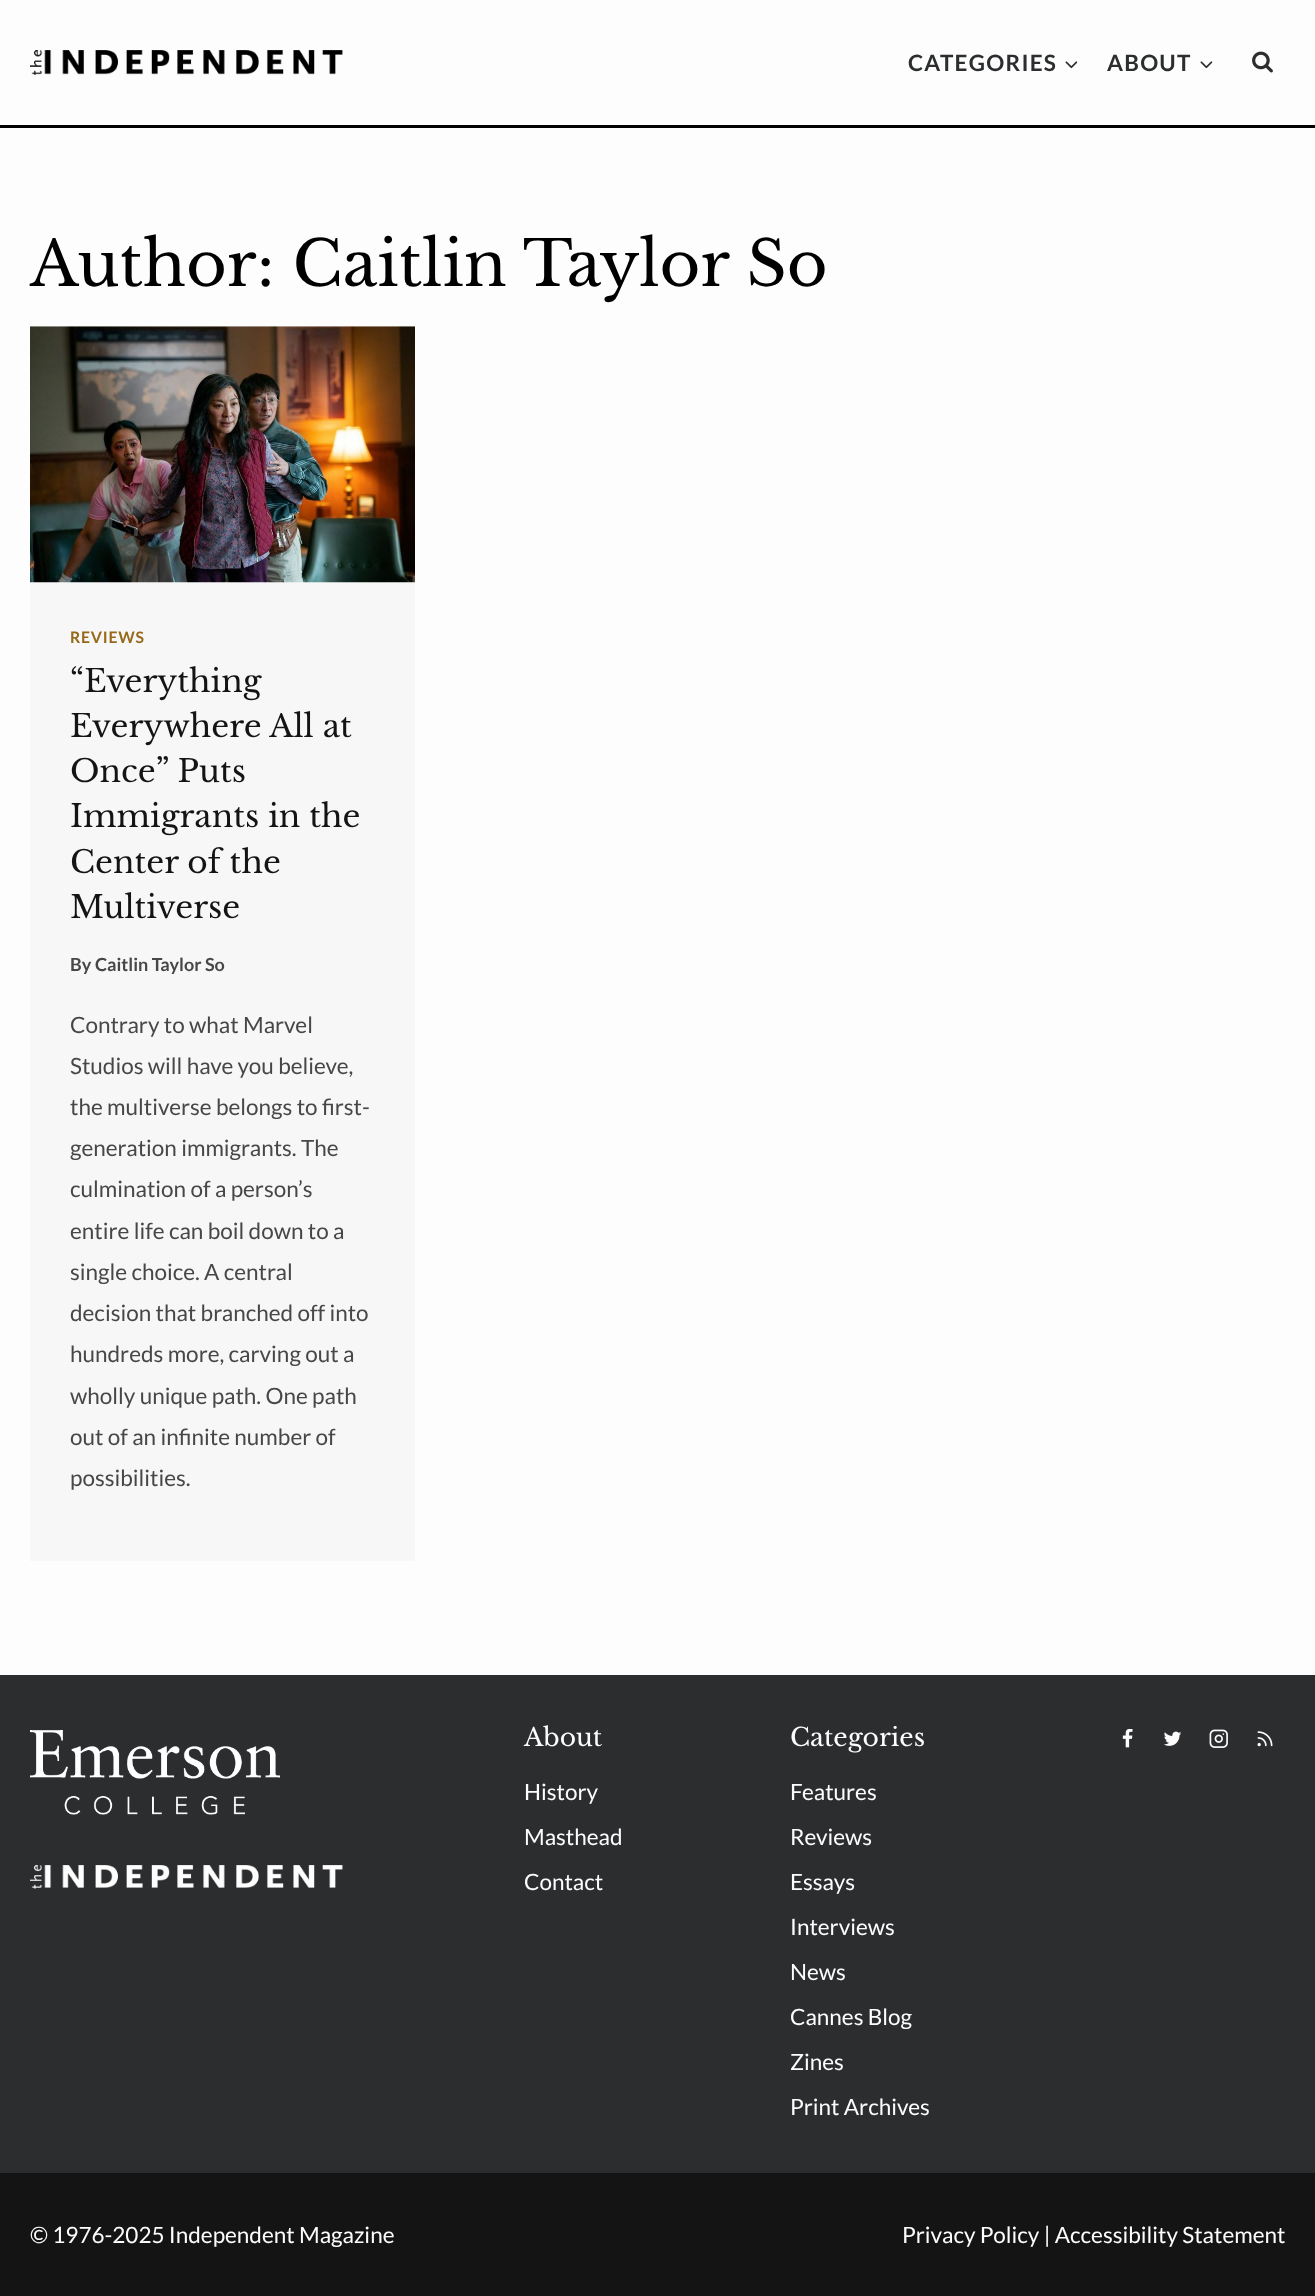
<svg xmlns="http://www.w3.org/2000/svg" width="1315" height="2296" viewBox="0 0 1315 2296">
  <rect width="100%" height="100%" fill="#fdfdfd"/>
  <rect x="0" y="125" width="1315" height="3" fill="#000000"/>
  <image x="30" y="50" width="313" height="25" href="img1.png"/>
  <text x="908" y="71" font-family="Lato" font-size="22.5" font-weight="bold" letter-spacing="1.25" fill="#2b2d2f">CATEGORIES</text>
  <image x="1065" y="61" width="13" height="8" href="img2.png"/>
  <text x="1107" y="71" font-family="Lato" font-size="22.5" font-weight="bold" letter-spacing="1.25" fill="#2b2d2f">ABOUT</text>
  <image x="1200" y="61" width="13" height="8" href="img2.png"/>
  <image x="1252" y="51" width="21" height="22" href="img3.png"/>
  <text x="30" y="286" font-family="Libre Baskerville" font-size="62.5" fill="#000000">Author: Caitlin Taylor So</text>
  <rect x="30" y="326" width="385" height="1235" fill="#f7f7f7"/>
  <image x="30" y="326" width="385" height="257" href="img4.png"/>
  <text x="70" y="643" font-family="Lato" font-size="15.75" font-weight="bold" letter-spacing="0.75" fill="#966919">REVIEWS</text>
  <text x="70" y="692" font-family="Libre Baskerville" font-size="31.25" fill="#141414">“Everything</text>
  <text x="70" y="737" font-family="Libre Baskerville" font-size="31.25" fill="#141414">Everywhere All at</text>
  <text x="70" y="782" font-family="Libre Baskerville" font-size="31.25" fill="#141414">Once” Puts</text>
  <text x="70" y="827" font-family="Libre Baskerville" font-size="31.25" fill="#141414">Immigrants in the</text>
  <text x="70" y="873" font-family="Libre Baskerville" font-size="31.25" fill="#141414">Center of the</text>
  <text x="70" y="918" font-family="Libre Baskerville" font-size="31.25" fill="#141414">Multiverse</text>
  <text x="70" y="971" font-family="Lato" font-size="18" font-weight="bold" fill="#474747">By</text>
  <text x="95" y="971" font-family="Lato" font-size="18" font-weight="bold" fill="#474747">Caitlin Taylor So</text>
  <text x="70" y="1033" font-family="Lato" font-size="22.5" fill="#474747">Contrary to what Marvel</text>
  <text x="70" y="1074" font-family="Lato" font-size="22.5" fill="#474747">Studios will have you believe,</text>
  <text x="70" y="1115" font-family="Lato" font-size="22.5" fill="#474747">the multiverse belongs to first-</text>
  <text x="70" y="1156" font-family="Lato" font-size="22.5" fill="#474747">generation immigrants. The</text>
  <text x="70" y="1197" font-family="Lato" font-size="22.5" fill="#474747">culmination of a person’s</text>
  <text x="70" y="1239" font-family="Lato" font-size="22.5" fill="#474747">entire life can boil down to a</text>
  <text x="70" y="1280" font-family="Lato" font-size="22.5" fill="#474747">single choice. A central</text>
  <text x="70" y="1321" font-family="Lato" font-size="22.5" fill="#474747">decision that branched off into</text>
  <text x="70" y="1362" font-family="Lato" font-size="22.5" fill="#474747">hundreds more, carving out a</text>
  <text x="70" y="1404" font-family="Lato" font-size="22.5" fill="#474747">wholly unique path. One path</text>
  <text x="70" y="1445" font-family="Lato" font-size="22.5" fill="#474747">out of an infinite number of</text>
  <text x="70" y="1486" font-family="Lato" font-size="22.5" fill="#474747">possibilities.</text>
  <rect x="0" y="1675" width="1315" height="498" fill="#2b2d2f"/>
  <image x="30" y="1730" width="250" height="85" href="img5.png"/>
  <image x="30" y="1865" width="313" height="24" href="img6.png"/>
  <text x="524" y="1746" font-family="Libre Baskerville" font-size="25" fill="#fdfdfd">About</text>
  <text x="524" y="1800" font-family="Lato" font-size="22.5" fill="#fdfdfd">History</text>
  <text x="524" y="1845" font-family="Lato" font-size="22.5" fill="#fdfdfd">Masthead</text>
  <text x="524" y="1890" font-family="Lato" font-size="22.5" fill="#fdfdfd">Contact</text>
  <text x="790" y="1746" font-family="Libre Baskerville" font-size="25" fill="#fdfdfd">Categories</text>
  <text x="790" y="1800" font-family="Lato" font-size="22.5" fill="#fdfdfd">Features</text>
  <text x="790" y="1845" font-family="Lato" font-size="22.5" fill="#fdfdfd">Reviews</text>
  <text x="790" y="1890" font-family="Lato" font-size="22.5" fill="#fdfdfd">Essays</text>
  <text x="790" y="1935" font-family="Lato" font-size="22.5" fill="#fdfdfd">Interviews</text>
  <text x="790" y="1980" font-family="Lato" font-size="22.5" fill="#fdfdfd">News</text>
  <text x="790" y="2025" font-family="Lato" font-size="22.5" fill="#fdfdfd">Cannes Blog</text>
  <text x="790" y="2070" font-family="Lato" font-size="22.5" fill="#fdfdfd">Zines</text>
  <text x="790" y="2115" font-family="Lato" font-size="22.5" fill="#fdfdfd">Print Archives</text>
  <image x="1122" y="1729" width="11" height="19" href="img7.png"/>
  <image x="1163" y="1731" width="19" height="15" href="img8.png"/>
  <image x="1209" y="1729" width="19" height="19" href="img9.png"/>
  <image x="1257" y="1731" width="16" height="16" href="img10.png"/>
  <rect x="0" y="2173" width="1315" height="123" fill="#141414"/>
  <text x="30" y="2243" font-family="Lato" font-size="22.5" fill="#fdfdfd">© 1976-2025 Independent Magazine</text>
  <text x="902" y="2243" font-family="Lato" font-size="22.5" fill="#fdfdfd">Privacy Policy | Accessibility Statement</text>
</svg>
